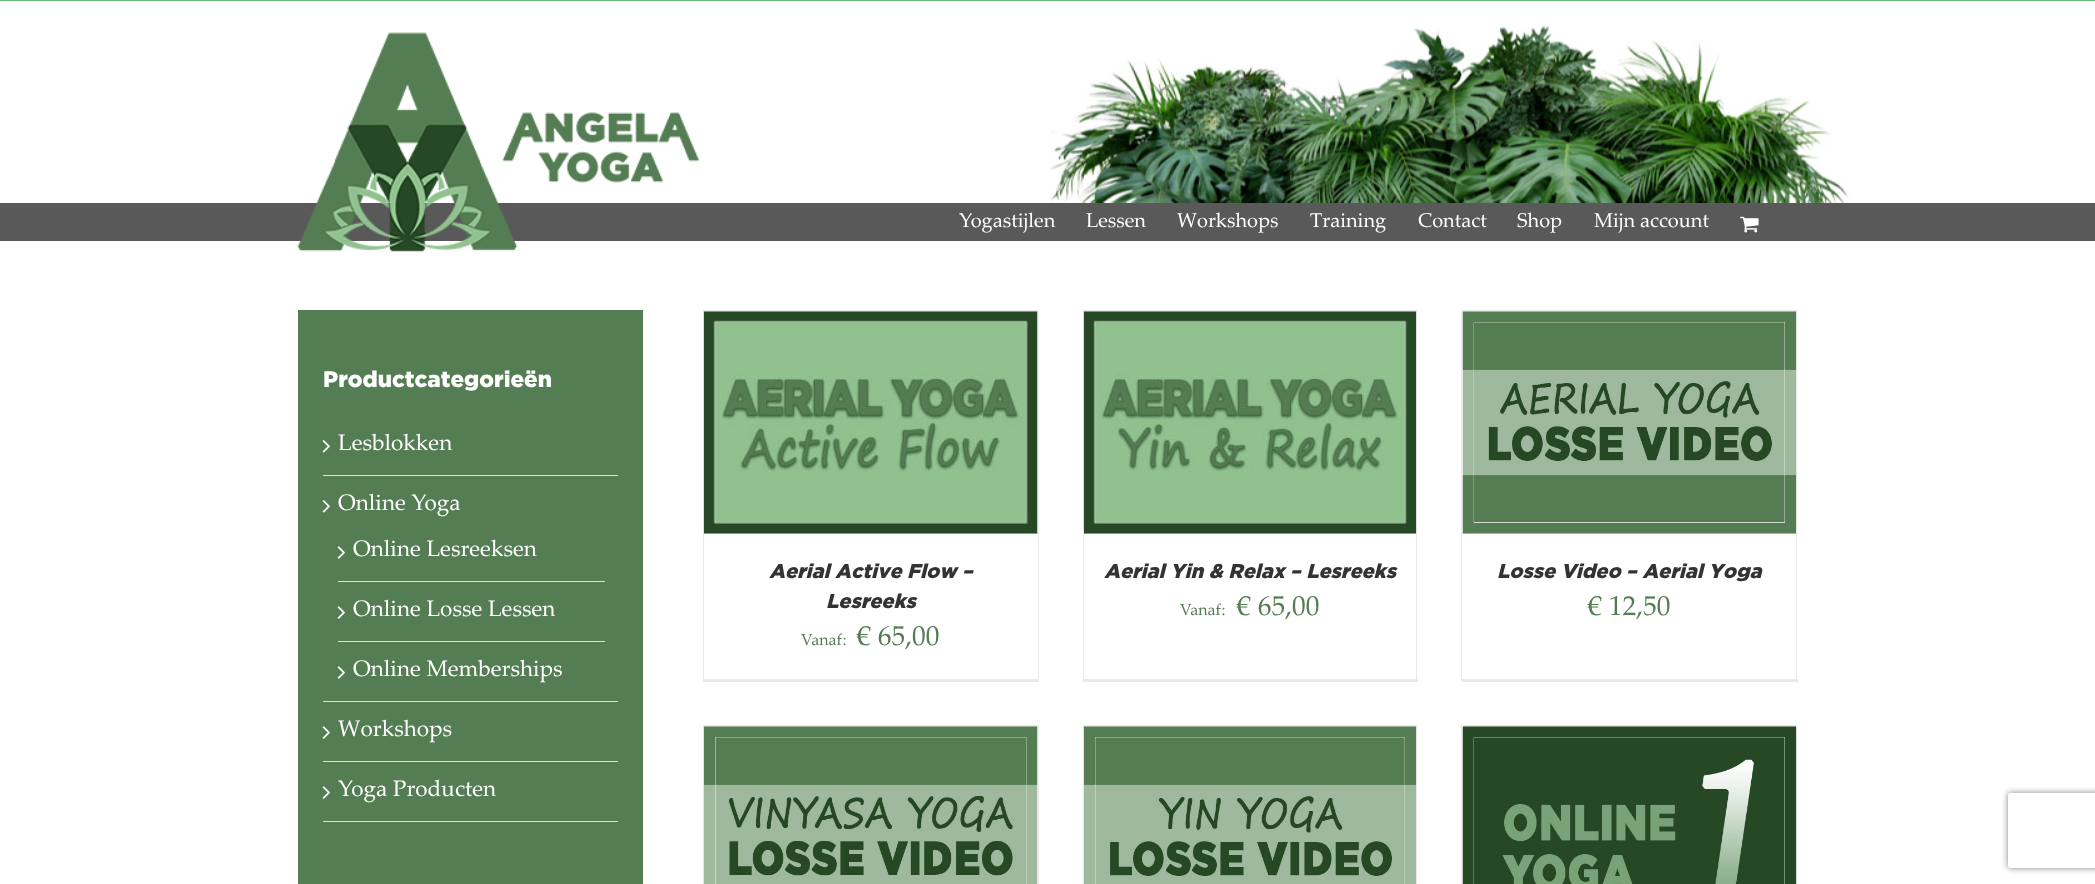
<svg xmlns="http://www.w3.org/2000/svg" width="2095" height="884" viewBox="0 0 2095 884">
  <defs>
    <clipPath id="clip1"><path d="M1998 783H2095V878H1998ZM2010.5 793H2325.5C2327 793 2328 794 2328 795.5V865.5C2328 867 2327 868 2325.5 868H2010.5C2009 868 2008 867 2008 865.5V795.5C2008 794 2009 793 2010.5 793Z" clip-rule="evenodd"/></clipPath>
    <filter id="blur1" x="-50%" y="-200%" width="200%" height="500%"><feGaussianBlur stdDeviation="3"/></filter>
  </defs>
  <rect width="100%" height="100%" fill="#ffffff"/>
  <rect x="0" y="0" width="2095" height="1" fill="#65bc7b"/>
  <image x="1049" y="25" width="800" height="178" href="img1.png"/>
  <rect x="0" y="203" width="2095" height="38" fill="#595959"/>
  <image x="297" y="32" width="402" height="220" href="img2.png"/>
  <text x="959" y="227" font-family="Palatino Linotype" font-size="20" fill="#ffffff">Yogastijlen</text>
  <text x="1086" y="227" font-family="Palatino Linotype" font-size="20" fill="#ffffff">Lessen</text>
  <text x="1177" y="227" font-family="Palatino Linotype" font-size="20" fill="#ffffff">Workshops</text>
  <text x="1310" y="227" font-family="Palatino Linotype" font-size="20" fill="#ffffff">Training</text>
  <text x="1418" y="227" font-family="Palatino Linotype" font-size="20" fill="#ffffff">Contact</text>
  <text x="1517" y="227" font-family="Palatino Linotype" font-size="20" fill="#ffffff">Shop</text>
  <text x="1594" y="227" font-family="Palatino Linotype" font-size="20" fill="#ffffff">Mijn account</text>
  <image x="1740" y="216" width="19" height="17" href="img3.png"/>
  <rect x="298" y="310" width="345" height="574" fill="#557d53"/>
  <text x="323" y="387" font-family="Gotham" font-size="22.5" font-weight="900" fill="#ffffff">Productcategorieën</text>
  <rect x="323" y="475" width="295" height="1" fill="#e0dede"/>
  <image x="322" y="440" width="8" height="13" href="img4.png"/>
  <text x="338" y="450" font-family="Palatino Linotype" font-size="22.5" fill="#ffffff">Lesblokken</text>
  <rect x="323" y="701" width="295" height="1" fill="#e0dede"/>
  <image x="322" y="500" width="8" height="13" href="img4.png"/>
  <text x="338" y="510" font-family="Palatino Linotype" font-size="22.5" fill="#ffffff">Online Yoga</text>
  <rect x="338" y="581" width="267" height="1" fill="#e0dede"/>
  <image x="337" y="546" width="8" height="13" href="img5.png"/>
  <text x="353" y="556" font-family="Palatino Linotype" font-size="22.5" fill="#ffffff">Online Lesreeksen</text>
  <rect x="338" y="641" width="267" height="1" fill="#e0dede"/>
  <image x="337" y="606" width="8" height="13" href="img5.png"/>
  <text x="353" y="616" font-family="Palatino Linotype" font-size="22.5" fill="#ffffff">Online Losse Lessen</text>
  <image x="337" y="666" width="8" height="13" href="img5.png"/>
  <text x="353" y="676" font-family="Palatino Linotype" font-size="22.5" fill="#ffffff">Online Memberships</text>
  <rect x="323" y="761" width="295" height="1" fill="#e0dede"/>
  <image x="322" y="726" width="8" height="13" href="img5.png"/>
  <text x="338" y="736" font-family="Palatino Linotype" font-size="22.5" fill="#ffffff">Workshops</text>
  <rect x="323" y="821" width="295" height="1" fill="#e0dede"/>
  <image x="322" y="786" width="8" height="13" href="img5.png"/>
  <text x="338" y="796" font-family="Palatino Linotype" font-size="22.5" fill="#ffffff">Yoga Producten</text>
  <rect x="703" y="310" width="336" height="1" fill="#ebeaea"/>
  <rect x="1038" y="310" width="1" height="371" fill="#ebeaea"/>
  <rect x="703" y="679" width="336" height="3" fill="#ebeaea"/>
  <rect x="703" y="310" width="1" height="371" fill="#ebeaea"/>
  <image x="703" y="311" width="335" height="223" href="img6.png"/>
  <text x="769" y="578" font-family="Gotham" font-size="20" font-weight="900" font-style="italic" fill="#333333">Aerial Active Flow –</text>
  <text x="826" y="608" font-family="Gotham" font-size="20" font-weight="900" font-style="italic" fill="#333333">Lesreeks</text>
  <text x="801" y="645" font-family="Palatino Linotype" font-size="16" fill="#557d53">Vanaf:</text>
  <text x="857" y="645" font-family="Palatino Linotype" font-size="27.5" fill="#557d53">€ 65,00</text>
  <rect x="1083" y="310" width="335" height="1" fill="#ebeaea"/>
  <rect x="1416" y="310" width="1" height="371" fill="#ebeaea"/>
  <rect x="1083" y="679" width="335" height="3" fill="#ebeaea"/>
  <rect x="1083" y="310" width="1" height="371" fill="#ebeaea"/>
  <image x="1083" y="311" width="334" height="223" href="img7.png"/>
  <text x="1104" y="578" font-family="Gotham" font-size="20" font-weight="900" font-style="italic" fill="#333333">Aerial Yin &amp; Relax – Lesreeks</text>
  <text x="1180" y="615" font-family="Palatino Linotype" font-size="16" fill="#557d53">Vanaf:</text>
  <text x="1237" y="615" font-family="Palatino Linotype" font-size="27.5" fill="#557d53">€ 65,00</text>
  <rect x="1461" y="310" width="337" height="1" fill="#ebeaea"/>
  <rect x="1796" y="310" width="1" height="371" fill="#ebeaea"/>
  <rect x="1461" y="679" width="337" height="3" fill="#ebeaea"/>
  <rect x="1461" y="310" width="1" height="371" fill="#ebeaea"/>
  <image x="1462" y="311" width="335" height="223" href="img8.png"/>
  <text x="1497" y="578" font-family="Gotham" font-size="20" font-weight="900" font-style="italic" fill="#333333">Losse Video – Aerial Yoga</text>
  <text x="1588" y="615" font-family="Palatino Linotype" font-size="27.5" fill="#557d53">€ 12,50</text>
  <rect x="703" y="725" width="336" height="1" fill="#ebeaea"/>
  <rect x="1038" y="725" width="1" height="159" fill="#ebeaea"/>
  <rect x="703" y="725" width="1" height="159" fill="#ebeaea"/>
  <image x="703" y="726" width="335" height="158" href="img9.png"/>
  <rect x="1083" y="725" width="335" height="1" fill="#ebeaea"/>
  <rect x="1416" y="725" width="1" height="159" fill="#ebeaea"/>
  <rect x="1083" y="725" width="1" height="159" fill="#ebeaea"/>
  <image x="1083" y="726" width="334" height="158" href="img10.png"/>
  <rect x="1461" y="725" width="337" height="1" fill="#ebeaea"/>
  <rect x="1796" y="725" width="1" height="159" fill="#ebeaea"/>
  <rect x="1461" y="725" width="1" height="159" fill="#ebeaea"/>
  <image x="1462" y="726" width="335" height="158" href="img11.png"/>
  <g clip-path="url(#clip1)">
    <rect x="2008" y="793" width="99" height="75" rx="2.5" fill="#808080" filter="url(#blur1)"/>
  </g>
</svg>
